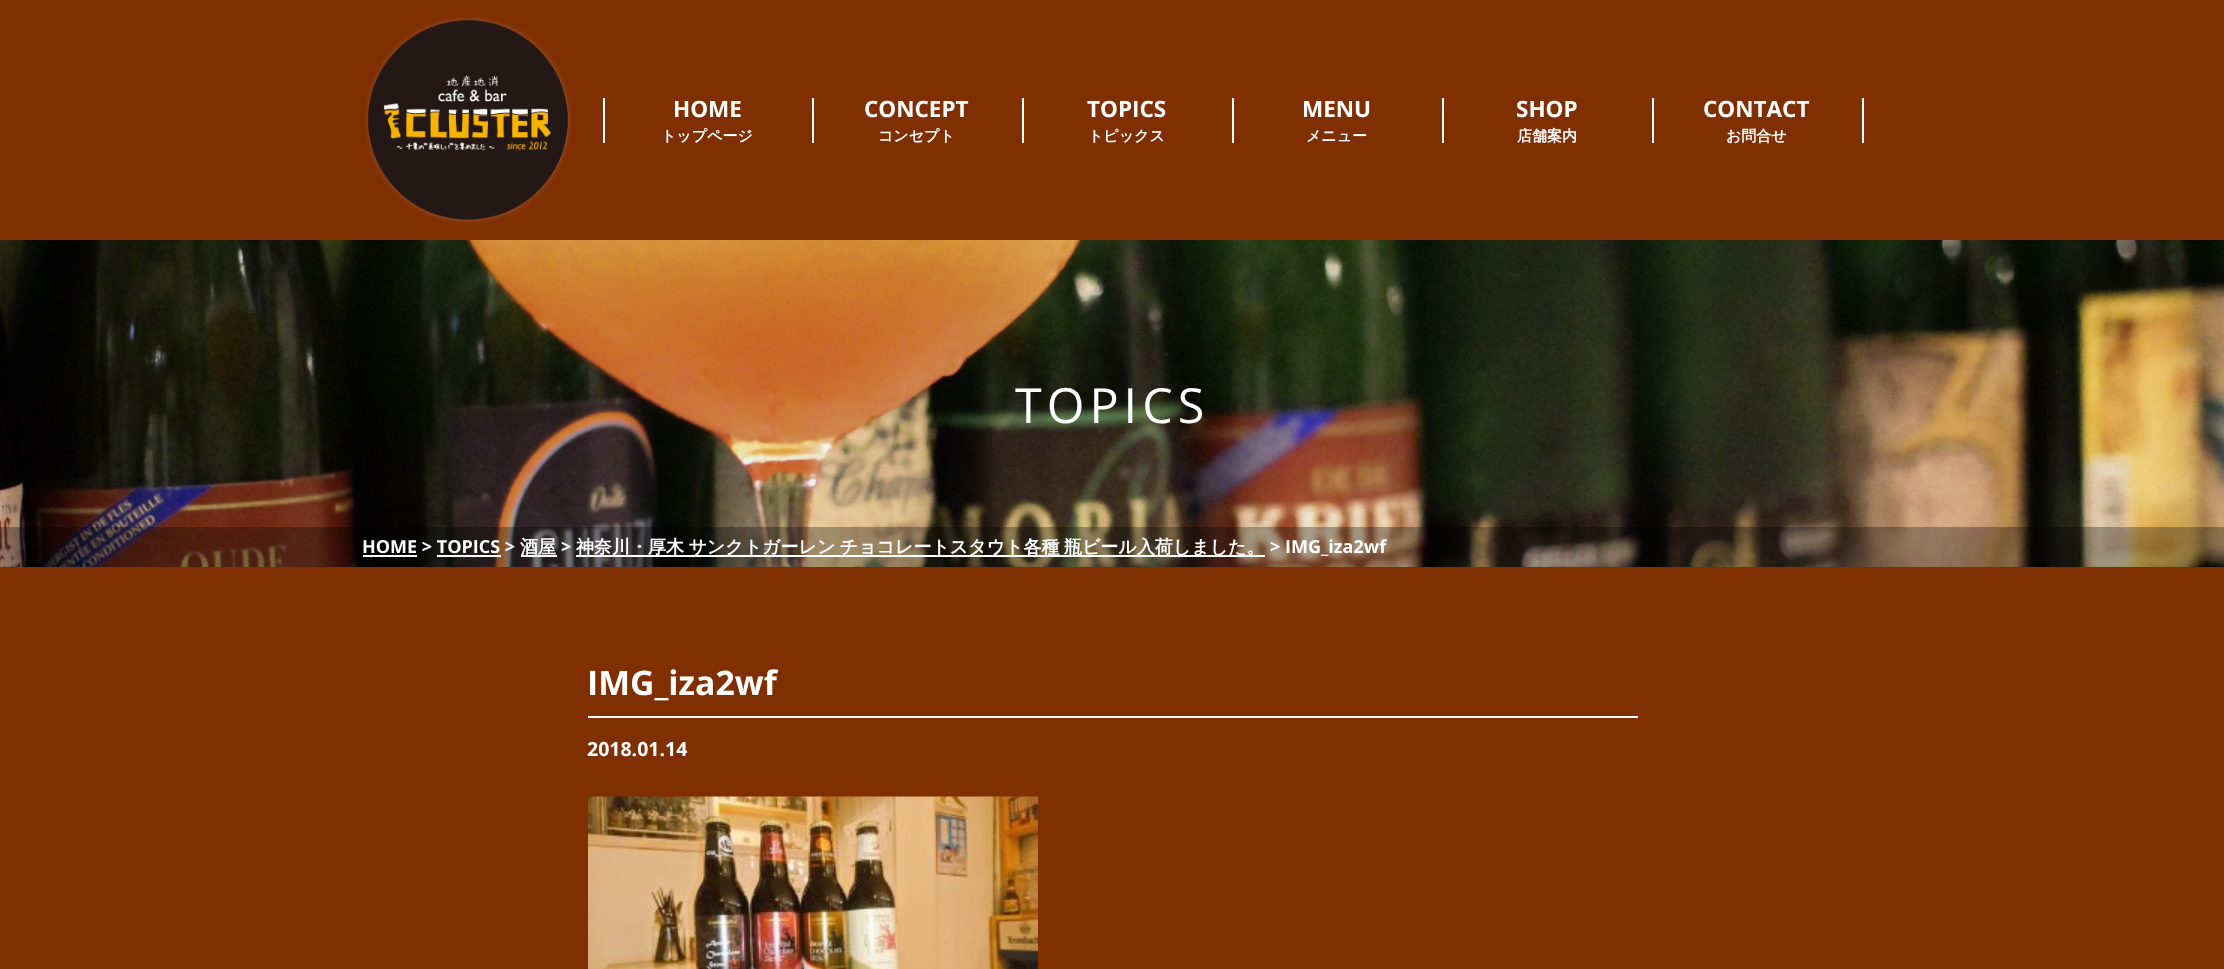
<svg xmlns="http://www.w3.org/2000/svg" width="2224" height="969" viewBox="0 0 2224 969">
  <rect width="100%" height="100%" fill="#802f03"/>
  <image x="365" y="17" width="206" height="206" href="img1.png"/>
  <rect x="812" y="98" width="2" height="45" fill="#ffffff"/>
  <rect x="603" y="98" width="2" height="45" fill="#ffffff"/>
  <text x="673" y="117" font-family="Open Sans" font-size="22.5" font-weight="bold" fill="#ffffff">HOME</text>
  <text x="661" y="141" font-family="WenQuanYi Zen Hei" font-size="15" font-weight="bold" fill="#ffffff">トップページ</text>
  <rect x="1022" y="98" width="2" height="45" fill="#ffffff"/>
  <text x="864" y="117" font-family="Open Sans" font-size="22.5" font-weight="bold" fill="#ffffff">CONCEPT</text>
  <text x="878" y="141" font-family="WenQuanYi Zen Hei" font-size="15" font-weight="bold" fill="#ffffff">コンセプト</text>
  <rect x="1232" y="98" width="2" height="45" fill="#ffffff"/>
  <text x="1087" y="117" font-family="Open Sans" font-size="22.5" font-weight="bold" fill="#ffffff">TOPICS</text>
  <text x="1088" y="141" font-family="WenQuanYi Zen Hei" font-size="15" font-weight="bold" fill="#ffffff">トピックス</text>
  <rect x="1442" y="98" width="2" height="45" fill="#ffffff"/>
  <text x="1302" y="117" font-family="Open Sans" font-size="22.5" font-weight="bold" fill="#ffffff">MENU</text>
  <text x="1306" y="141" font-family="WenQuanYi Zen Hei" font-size="15" font-weight="bold" fill="#ffffff">メニュー</text>
  <rect x="1652" y="98" width="2" height="45" fill="#ffffff"/>
  <text x="1516" y="117" font-family="Open Sans" font-size="22.5" font-weight="bold" fill="#ffffff">SHOP</text>
  <text x="1517" y="141" font-family="WenQuanYi Zen Hei" font-size="15" font-weight="bold" fill="#ffffff">店舗案内</text>
  <rect x="1862" y="98" width="2" height="45" fill="#ffffff"/>
  <text x="1703" y="117" font-family="Open Sans" font-size="22.5" font-weight="bold" fill="#ffffff">CONTACT</text>
  <text x="1726" y="141" font-family="WenQuanYi Zen Hei" font-size="15" font-weight="bold" fill="#ffffff">お問合せ</text>
  <image x="0" y="240" width="2224" height="327" href="img2.png"/>
  <text x="1015" y="423" font-family="Open Sans" font-size="48.5" letter-spacing="5" fill="#ffffff">TOPICS</text>
  <rect x="0" y="527" width="2224" height="40" fill="#000000" fill-opacity="0.3"/>
  <text x="362" y="553" font-family="Open Sans" font-size="18" font-weight="bold" fill="#ffffff">HOME &gt; TOPICS &gt;</text>
  <rect x="363" y="555" width="54" height="2" fill="#ffffff"/>
  <rect x="521" y="555" width="36" height="2" fill="#ffffff"/>
  <text x="520" y="553" font-family="WenQuanYi Zen Hei" font-size="18" font-weight="bold" fill="#ffffff">酒屋</text>
  <text x="561" y="553" font-family="Open Sans" font-size="18" font-weight="bold" fill="#ffffff">&gt;</text>
  <rect x="576" y="555" width="689" height="2" fill="#ffffff"/>
  <text x="576" y="553" word-spacing="-1" font-family="WenQuanYi Zen Hei" font-size="18" font-weight="bold" fill="#ffffff">神奈川・厚木 サンクトガーレン チョコレートスタウト各種 瓶ビール入荷しました。</text>
  <text x="1270" y="553" font-family="Open Sans" font-size="18" font-weight="bold" fill="#ffffff">&gt; IMG_iza2wf</text>
  <rect x="437" y="555" width="64" height="2" fill="#ffffff"/>
  <rect x="588" y="716" width="1050" height="2" fill="#ffffff"/>
  <text x="587" y="695" font-family="Open Sans" font-size="33.75" font-weight="bold" fill="#ffffff">IMG_iza2wf</text>
  <text x="587" y="756" font-family="Open Sans" font-size="19.5" font-weight="bold" fill="#ffffff">2018.01.14</text>
  <image x="588" y="796" width="450" height="173" href="img3.png"/>
</svg>
